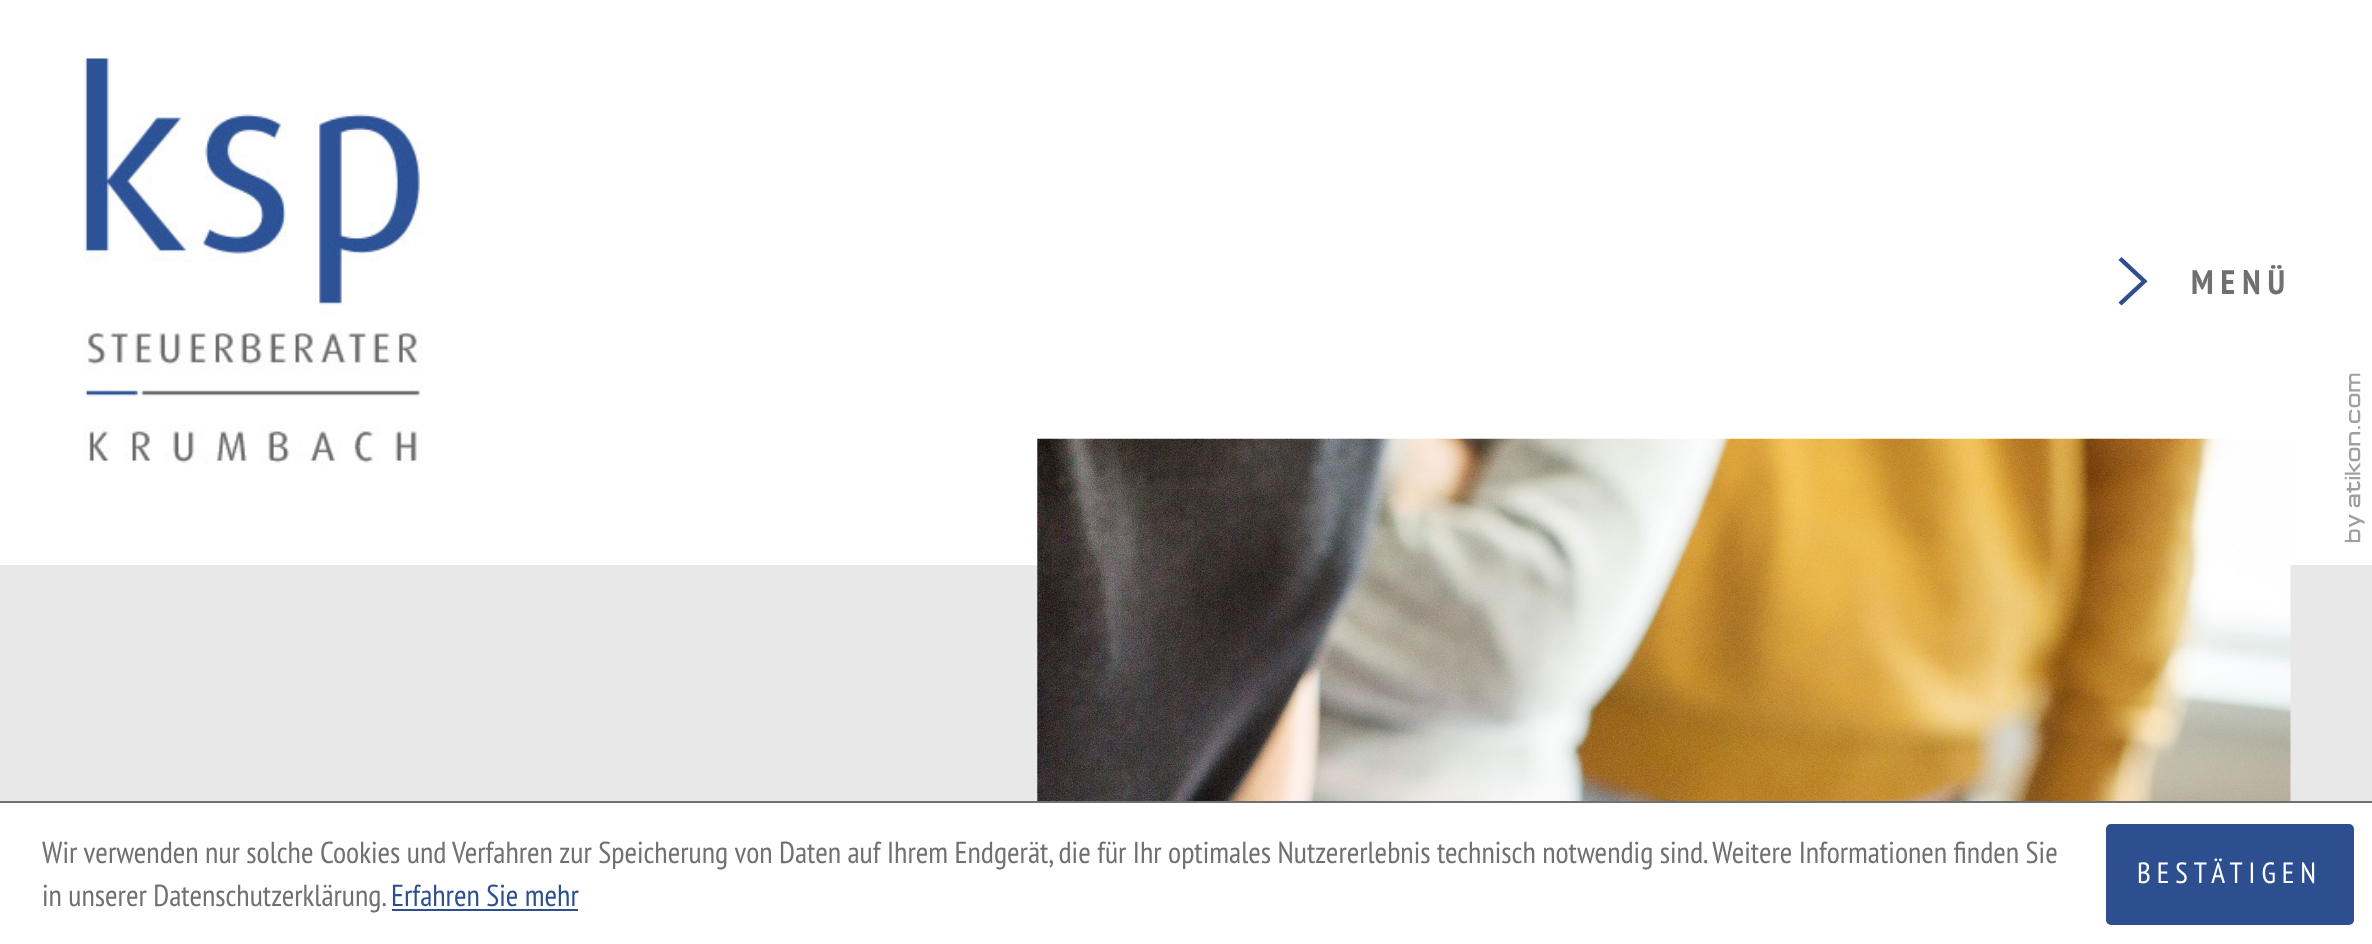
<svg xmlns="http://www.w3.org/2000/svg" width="2372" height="944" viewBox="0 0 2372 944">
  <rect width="100%" height="100%" fill="#ffffff"/>
  <image x="83" y="58" width="340" height="407" href="img1.png"/>
  <image x="2118" y="257" width="30" height="49" href="img2.png"/>
  <text x="2191" y="294" font-family="PT Sans Narrow" font-size="34" font-weight="bold" letter-spacing="7" fill="#707070">MENÜ</text>
  <image x="2344" y="373" width="21" height="170" href="img3.png"/>
  <rect x="0" y="565" width="2372" height="236" fill="#e9e8e8"/>
  <image x="1037" y="438" width="1254" height="363" href="img4.png"/>
  <rect x="0" y="801" width="2372" height="2" fill="#707070"/>
  <text x="42" y="863" font-family="PT Sans Narrow" font-size="30.35" fill="#707070">Wir verwenden nur solche Cookies und Verfahren zur Speicherung von Daten auf Ihrem Endgerät, die für Ihr optimales Nutzererlebnis technisch notwendig sind. Weitere Informationen finden Sie</text>
  <text x="42" y="906" font-family="PT Sans Narrow" font-size="30.35" fill="#707070">in unserer Datenschutzerklärung.</text>
  <text x="391" y="906" font-family="PT Sans Narrow" font-size="30.35" fill="#2d4f8f">Erfahren Sie mehr</text>
  <rect x="392" y="909" width="186" height="2" fill="#2d4f8f"/>
  <rect x="2107" y="825" width="246" height="99" rx="4" fill="#2d4f8f" stroke="#2d4f8f" stroke-width="2"/>
  <text x="2137" y="883" font-family="PT Sans Narrow" font-size="29.25" letter-spacing="6" fill="#ffffff">BESTÄTIGEN</text>
</svg>
